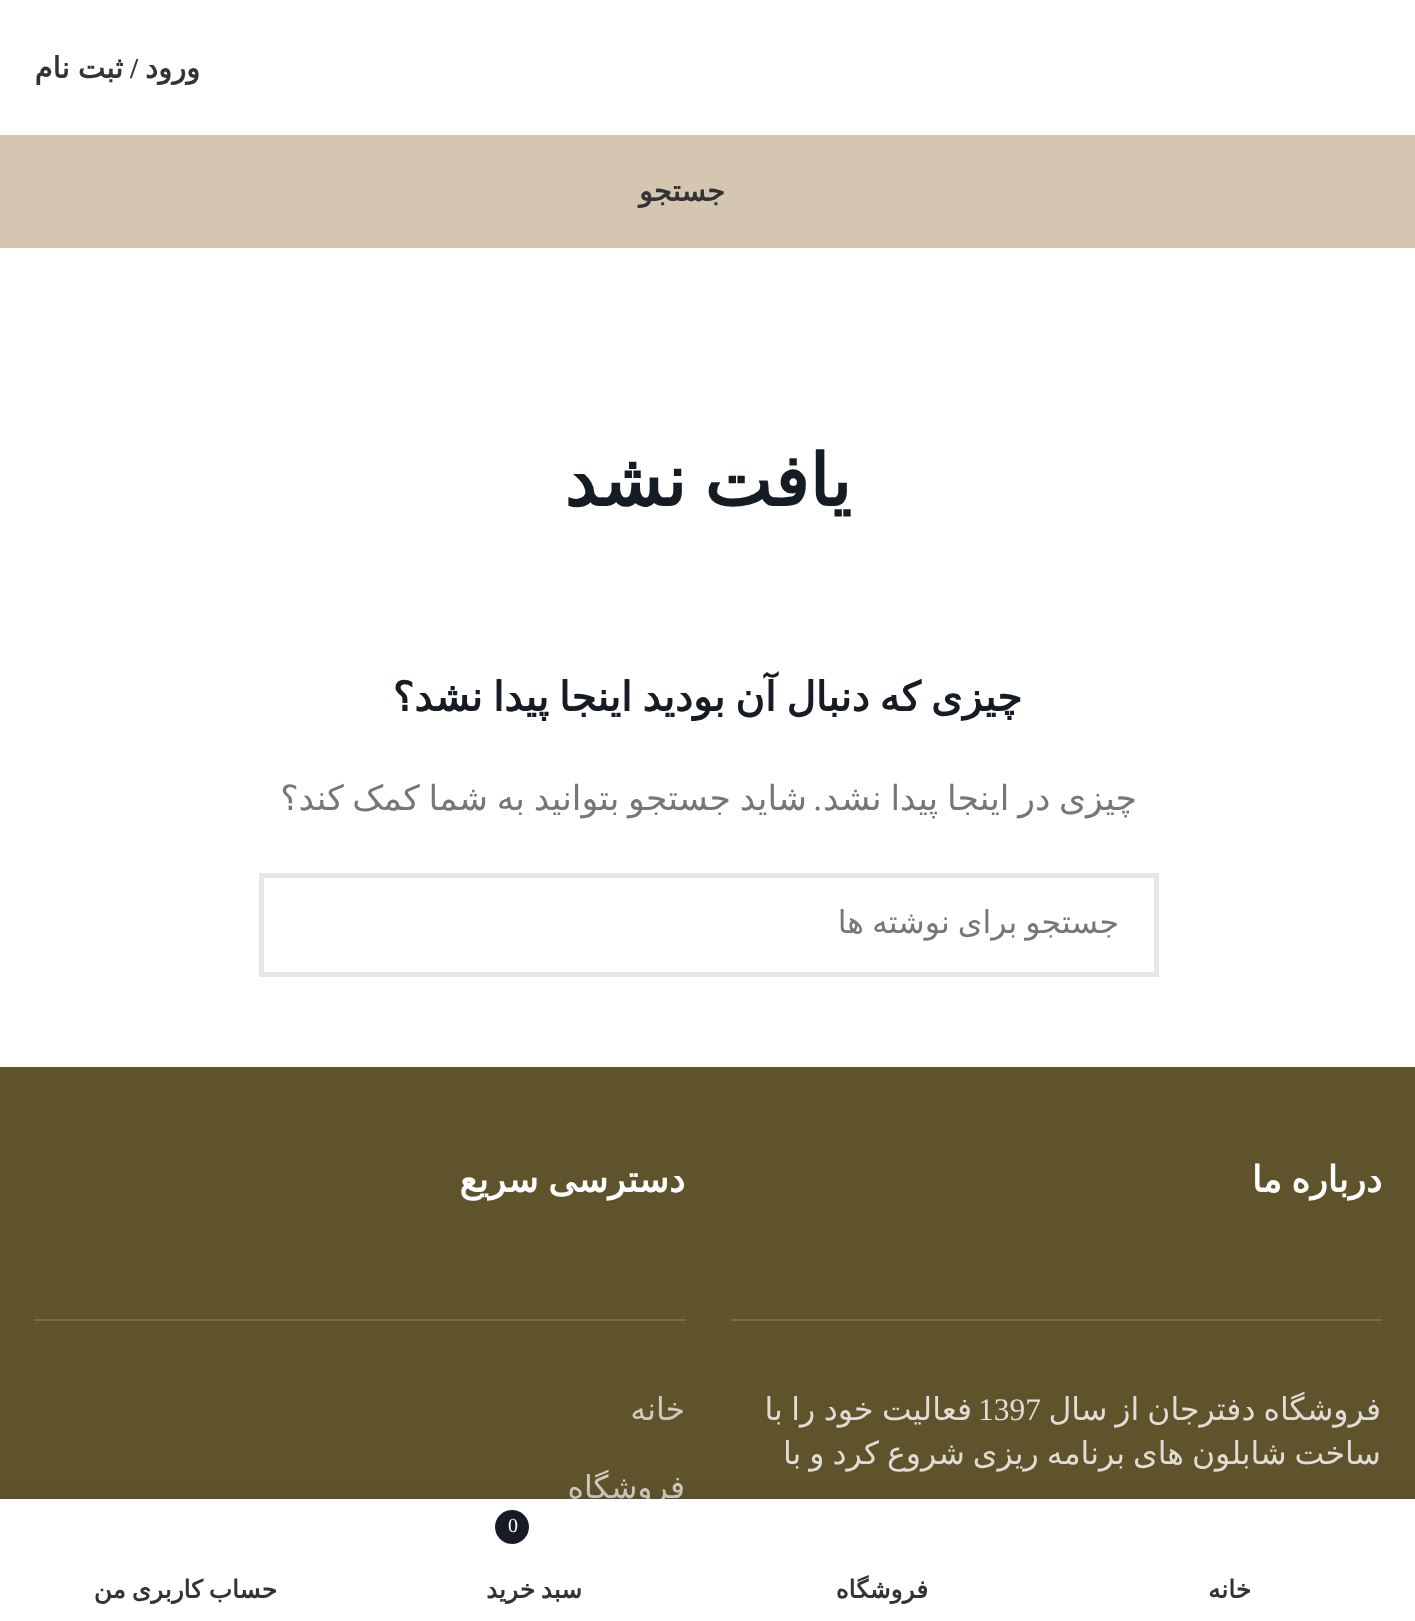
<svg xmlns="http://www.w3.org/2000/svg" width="1415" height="1621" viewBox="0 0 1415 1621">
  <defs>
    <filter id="blur1" x="-50%" y="-200%" width="200%" height="500%"><feGaussianBlur stdDeviation="10"/></filter>
  </defs>
  <rect width="100%" height="100%" fill="#ffffff"/>
  <text x="200" y="78" font-family="DejaVu Sans" font-size="29" font-weight="bold" direction="rtl" fill="#333333">ورود</text>
  <text x="138" y="78" font-family="Liberation Serif" font-size="29" font-weight="bold" direction="rtl" fill="#333333">/</text>
  <text x="123" y="78" word-spacing="-1" font-family="DejaVu Sans" font-size="29" font-weight="bold" direction="rtl" fill="#333333">ثبت نام</text>
  <rect x="0" y="135" width="1415" height="113" fill="#d5c6b2"/>
  <text x="725" y="201" font-family="DejaVu Sans" font-size="29" font-weight="bold" direction="rtl" fill="#333333">جستجو</text>
  <text x="851" y="506" word-spacing="-5" font-family="DejaVu Sans" font-size="72" font-weight="bold" direction="rtl" fill="#161c23">یافت نشد</text>
  <text x="1022" y="711" word-spacing="-2.75" font-family="DejaVu Sans" font-size="40.5" font-weight="bold" direction="rtl" fill="#161c23">چیزی که دنبال آن بودید اینجا پیدا نشد؟</text>
  <text x="1137" y="810" word-spacing="-2.25" font-family="DejaVu Sans" font-size="34.6" direction="rtl" fill="#767676">چیزی در اینجا پیدا نشد</text>
  <text x="822" y="810" font-family="Liberation Serif" font-size="34.6" direction="rtl" fill="#767676">.</text>
  <text x="807" y="810" word-spacing="-2.25" font-family="DejaVu Sans" font-size="34.6" direction="rtl" fill="#767676">شاید جستجو بتوانید به شما کمک کند؟</text>
  <rect x="261.5" y="875.5" width="895" height="99" fill="none" stroke="#e6e6e6" stroke-width="5"/>
  <text x="1119" y="933" word-spacing="-2" font-family="DejaVu Sans" font-size="31.5" direction="rtl" fill="#767676">جستجو برای نوشته ها</text>
  <rect x="0" y="1067" width="1415" height="432" fill="#5f532c"/>
  <rect x="731" y="1319" width="651" height="2" fill="#776d4c"/>
  <text x="1382" y="1192" word-spacing="-2" font-family="DejaVu Sans" font-size="36" font-weight="bold" direction="rtl" fill="#ffffff">درباره ما</text>
  <text x="1381" y="1420" word-spacing="-2" font-family="DejaVu Sans" font-size="31.5" direction="rtl" fill="#dfddd5">فروشگاه دفترجان از سال</text>
  <text x="978" y="1420" font-family="Liberation Serif" font-size="31.5" fill="#dfddd5">1397</text>
  <text x="972" y="1420" word-spacing="-1.5" font-family="DejaVu Sans" font-size="31.5" direction="rtl" fill="#dfddd5">فعالیت خود را با</text>
  <text x="1381" y="1464" word-spacing="-2" font-family="DejaVu Sans" font-size="31.5" direction="rtl" fill="#dfddd5">ساخت شابلون های برنامه ریزی شروع کرد و با</text>
  <rect x="34" y="1319" width="652" height="2" fill="#776d4c"/>
  <text x="685" y="1192" word-spacing="-2" font-family="DejaVu Sans" font-size="36" font-weight="bold" direction="rtl" fill="#ffffff">دسترسی سریع</text>
  <text x="685" y="1420" font-family="DejaVu Sans" font-size="31.5" direction="rtl" fill="#cfcbc0">خانه</text>
  <text x="685" y="1498" font-family="DejaVu Sans" font-size="31.5" direction="rtl" fill="#cfcbc0">فروشگاه</text>
  <rect x="0" y="1499" width="1415" height="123" fill="#000000" fill-opacity="0.12" filter="url(#blur1)"/>
  <rect x="0" y="1499" width="1415" height="122" fill="#ffffff"/>
  <text x="1251" y="1598" font-family="DejaVu Sans" font-size="24.75" font-weight="bold" direction="rtl" fill="#333333">خانه</text>
  <text x="928" y="1598" font-family="DejaVu Sans" font-size="24.75" font-weight="bold" direction="rtl" fill="#333333">فروشگاه</text>
  <circle cx="512" cy="1527" r="17" fill="#161c23"/>
  <text x="508" y="1532" font-family="Liberation Serif" font-size="20" fill="#ffffff">0</text>
  <text x="582" y="1598" word-spacing="-2" font-family="DejaVu Sans" font-size="24.75" font-weight="bold" direction="rtl" fill="#333333">سبد خرید</text>
  <text x="277" y="1598" word-spacing="-2" font-family="DejaVu Sans" font-size="24.75" font-weight="bold" direction="rtl" fill="#333333">حساب کاربری من</text>
</svg>
